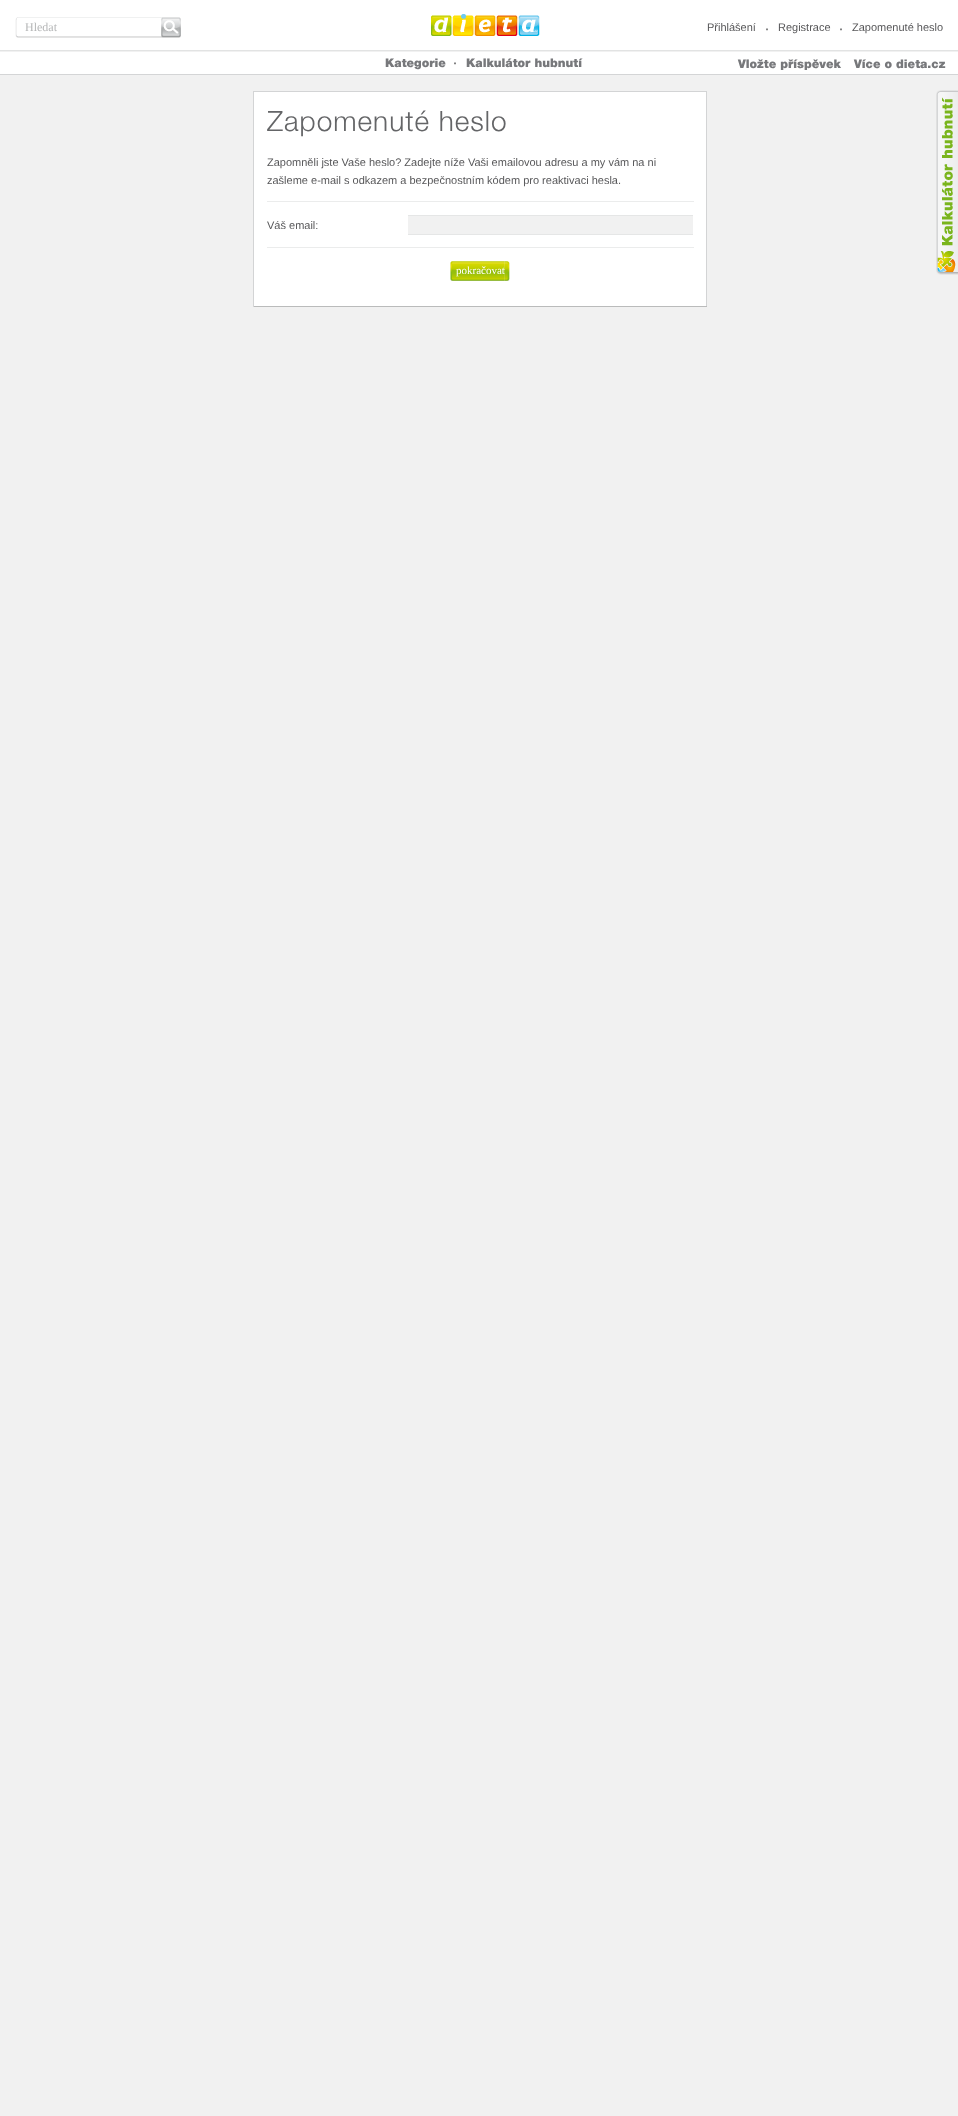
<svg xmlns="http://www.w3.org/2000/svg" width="958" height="2116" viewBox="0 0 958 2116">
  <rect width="100%" height="100%" fill="#f1f1f1"/>
  <rect x="0" y="0" width="958" height="50" fill="#ffffff"/>
  <image x="15" y="17" width="146" height="21" href="img1.png"/>
  <text x="25" y="31" font-family="Liberation Serif" font-size="12" fill="#b5b6b7">Hledat</text>
  <image x="161" y="17" width="20" height="21" href="img2.png"/>
  <image x="431" y="14" width="109" height="22" href="img3.png"/>
  <text x="707" y="31" font-family="Liberation Sans" font-size="11" fill="#58585a">Přihlášení</text>
  <image x="766" y="28" width="2" height="3" href="img4.png"/>
  <text x="778" y="31" font-family="Liberation Sans" font-size="11" fill="#58585a">Registrace</text>
  <image x="840" y="28" width="2" height="3" href="img4.png"/>
  <text x="852" y="31" font-family="Liberation Sans" font-size="11" fill="#58585a">Zapomenuté heslo</text>
  <image x="0" y="50" width="958" height="25" href="img5.png"/>
  <text x="385" y="67" font-family="Helvetica Neue" font-size="12" font-weight="900" fill="#77787b">Kategorie</text>
  <image x="454" y="62" width="2" height="3" href="img4.png"/>
  <text x="466" y="67" font-family="Helvetica Neue" font-size="12" font-weight="900" fill="#77787b">Kalkulátor hubnutí</text>
  <text x="738" y="68" font-family="Helvetica Neue" font-size="12" font-weight="900" fill="#77787b">Vložte příspěvek</text>
  <text x="854" y="68" font-family="Helvetica Neue" font-size="12" font-weight="900" fill="#77787b">Více o dieta.cz</text>
  <rect x="254" y="92" width="452" height="214" fill="#ffffff"/>
  <rect x="253" y="91" width="454" height="1" fill="#d3d4d5"/>
  <rect x="706" y="91" width="1" height="216" fill="#d3d4d5"/>
  <rect x="253" y="306" width="454" height="1" fill="#babbbb"/>
  <rect x="253" y="91" width="1" height="216" fill="#d3d4d5"/>
  <text x="267" y="131" font-family="Helvetica Neue" font-size="28" font-weight="300" letter-spacing="1" fill="#646567">Zapomenuté heslo</text>
  <text x="267" y="166" font-family="Liberation Sans" font-size="11" fill="#58585a">Zapomněli jste Vaše heslo? Zadejte níže Vaši emailovou adresu a my vám na ni</text>
  <text x="267" y="184" font-family="Liberation Sans" font-size="11" fill="#58585a">zašleme e-mail s odkazem a bezpečnostním kódem pro reaktivaci hesla.</text>
  <rect x="267" y="201" width="427" height="1" fill="#ebecec"/>
  <rect x="408" y="216" width="285" height="18" fill="#f1f1f1"/>
  <rect x="408" y="215" width="285" height="1" fill="#e5e6e6"/>
  <rect x="408" y="234" width="285" height="1" fill="#e5e6e6"/>
  <text x="267" y="229" font-family="Liberation Sans" font-size="11" fill="#58585a">Váš email:</text>
  <rect x="267" y="247" width="427" height="1" fill="#ebecec"/>
  <image x="504" y="261" width="6" height="20" href="img6.png"/>
  <image x="450" y="261" width="54" height="20" href="img7.png"/>
  <text x="456" y="274" font-family="Liberation Serif" font-size="11" fill="#ffffff">pokračovat</text>
  <image x="936" y="90" width="22" height="185" href="img8.png"/>
</svg>
